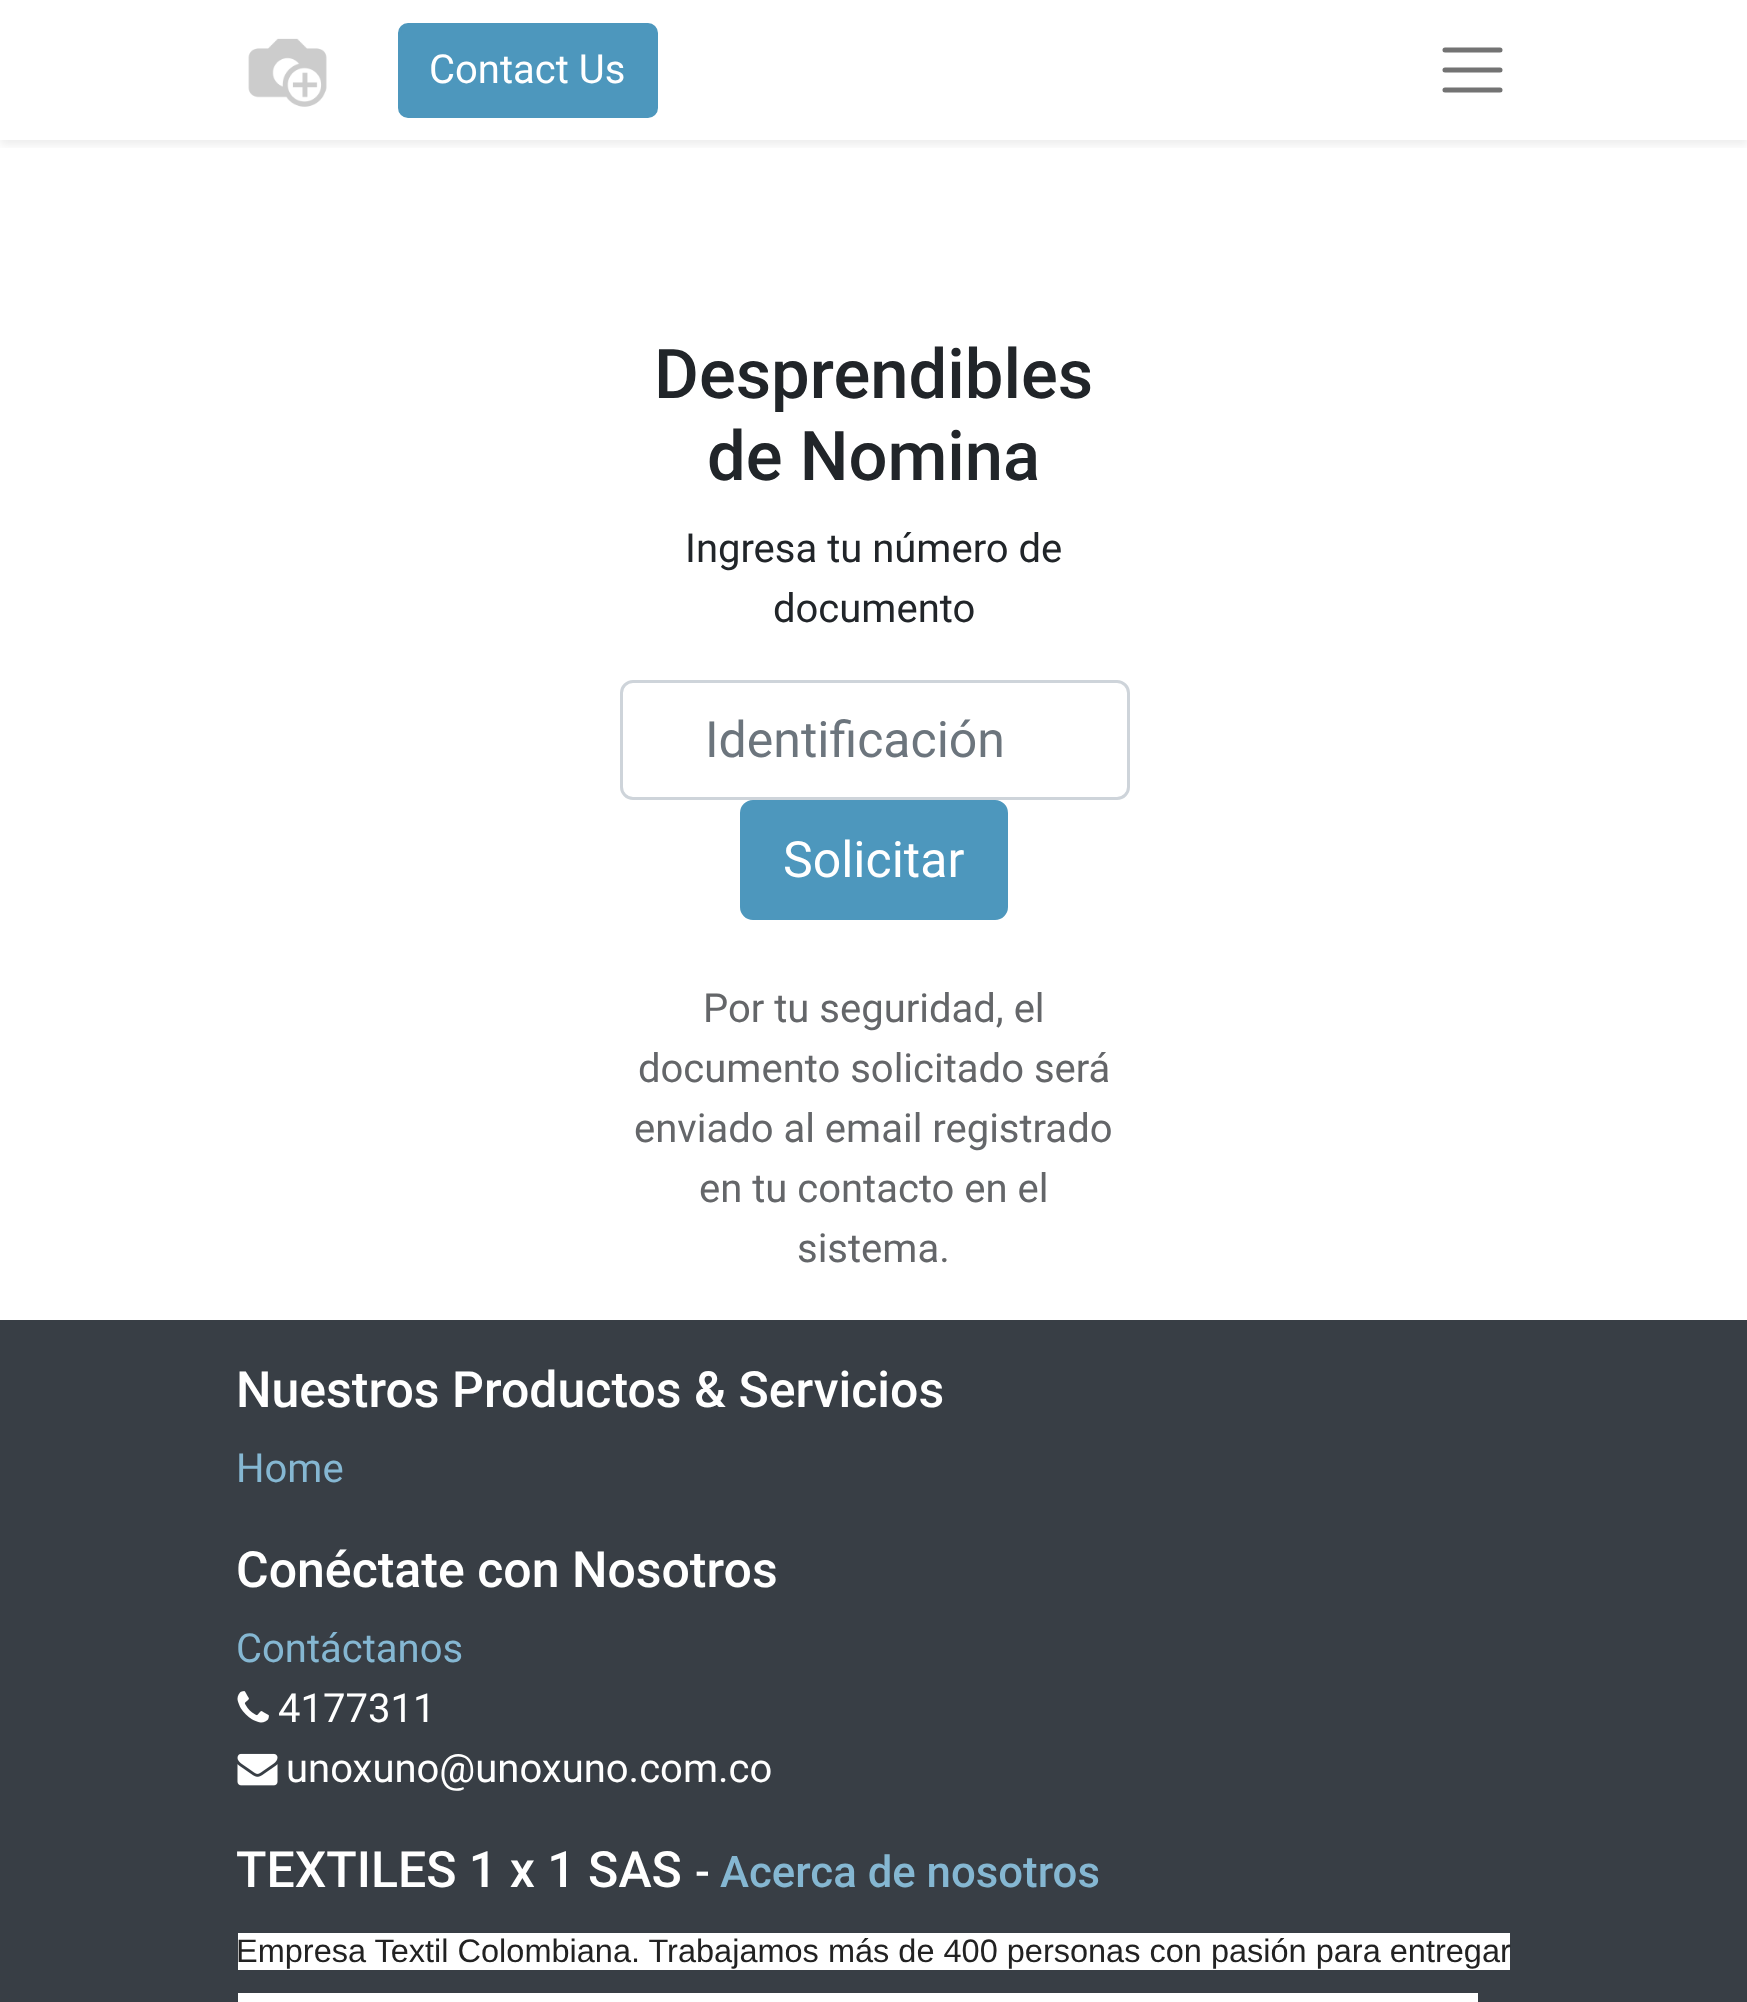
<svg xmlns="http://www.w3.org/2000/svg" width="1747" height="2002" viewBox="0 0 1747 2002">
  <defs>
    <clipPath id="clip1"><rect x="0" y="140" width="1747" height="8"/></clipPath>
    <filter id="blur1" x="-50%" y="-200%" width="200%" height="500%"><feGaussianBlur stdDeviation="5"/></filter>
  </defs>
  <rect width="100%" height="100%" fill="#ffffff"/>
  <g clip-path="url(#clip1)">
    <rect x="0" y="5" width="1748" height="140" fill="#000000" fill-opacity="0.07" filter="url(#blur1)"/>
  </g>
  <image x="248" y="38" width="79" height="69" href="img1.png"/>
  <rect x="399.5" y="24.5" width="257" height="92" rx="8.5" fill="#4d97bd" stroke="#4d97bd" stroke-width="3"/>
  <text x="429" y="83" font-family="Roboto" font-size="40" fill="#ffffff">Contact Us</text>
  <path d="M1445 50H1500M1445 70H1500M1445 90H1500" fill="none" stroke="#737373" stroke-width="5" stroke-linecap="round"/>
  <text x="654" y="398" font-family="Roboto" font-size="68.75" font-weight="500" fill="#212529">Desprendibles</text>
  <text x="707" y="480" font-family="Roboto" font-size="68.75" font-weight="500" fill="#212529">de Nomina</text>
  <text x="685" y="562" font-family="Roboto" font-size="40" fill="#212529">Ingresa tu número de</text>
  <text x="773" y="622" font-family="Roboto" font-size="40" fill="#212529">documento</text>
  <rect x="621.5" y="681.5" width="507" height="117" rx="11.5" fill="none" stroke="#ced4da" stroke-width="3"/>
  <text x="705" y="757" font-family="Roboto" font-size="50" fill="#6c757d">Identificación</text>
  <rect x="741.5" y="801.5" width="265" height="117" rx="11.5" fill="#4d97bd" stroke="#4d97bd" stroke-width="3"/>
  <text x="783" y="877" font-family="Roboto" font-size="50" fill="#ffffff">Solicitar</text>
  <text x="703" y="1022" font-family="Roboto" font-size="40" fill="#646669">Por tu seguridad, el</text>
  <text x="638" y="1082" font-family="Roboto" font-size="40" fill="#646669">documento solicitado será</text>
  <text x="634" y="1142" font-family="Roboto" font-size="40" fill="#646669">enviado al email registrado</text>
  <text x="699" y="1202" font-family="Roboto" font-size="40" fill="#646669">en tu contacto en el</text>
  <text x="797" y="1262" font-family="Roboto" font-size="40" fill="#646669">sistema.</text>
  <rect x="0" y="1320" width="1747" height="682" fill="#383e45"/>
  <text x="236" y="1407" font-family="Roboto" font-size="50" font-weight="500" fill="#ffffff">Nuestros Productos &amp; Servicios</text>
  <text x="236" y="1482" font-family="Roboto" font-size="40" fill="#85b7d2">Home</text>
  <text x="236" y="1587" font-family="Roboto" font-size="50" font-weight="500" fill="#ffffff">Conéctate con Nosotros</text>
  <text x="236" y="1662" font-family="Roboto" font-size="40" fill="#85b7d2">Contáctanos</text>
  <image x="237" y="1691" width="32" height="32" href="img2.png"/>
  <text x="278" y="1722" font-family="Roboto" font-size="40" fill="#ffffff">4177311</text>
  <image x="237" y="1753" width="41" height="33" href="img3.png"/>
  <text x="286" y="1782" font-family="Roboto" font-size="40" fill="#ffffff">unoxuno@unoxuno.com.co</text>
  <text x="236" y="1887" font-family="Roboto" font-size="50" font-weight="500" fill="#ffffff">TEXTILES 1 x 1 SAS</text>
  <text x="695" y="1887" font-family="Roboto" font-size="43.75" font-weight="500" fill="#ffffff">-</text>
  <text x="720" y="1887" font-family="Roboto" font-size="43.75" font-weight="500" fill="#85b7d2">Acerca de nosotros</text>
  <rect x="238" y="1933" width="1272" height="37" fill="#ffffff"/>
  <text x="236" y="1962" font-family="Liberation Sans" font-size="32.5" fill="#222222">Empresa Textil Colombiana. Trabajamos más de 400 personas con pasión para entregar</text>
  <rect x="238" y="1993" width="1240" height="9" fill="#ffffff"/>
</svg>
